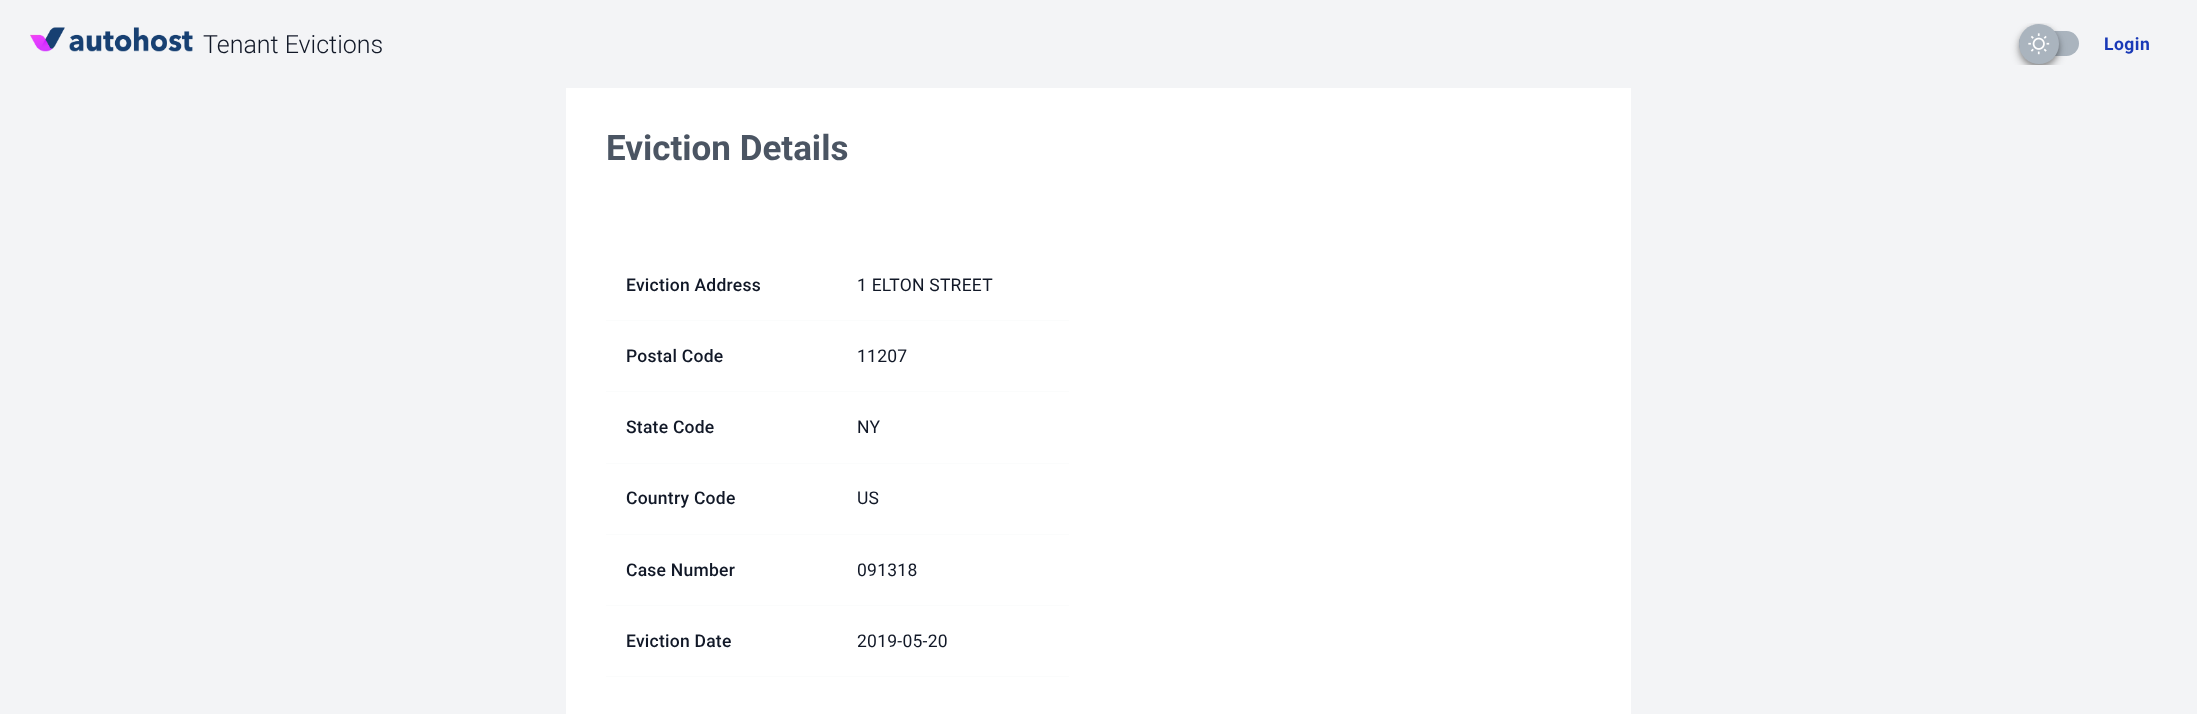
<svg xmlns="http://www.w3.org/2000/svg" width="2197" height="714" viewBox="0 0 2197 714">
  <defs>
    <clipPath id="clip1"><rect x="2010" y="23" width="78" height="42"/></clipPath>
    <filter id="blur1" x="-50%" y="-200%" width="200%" height="500%"><feGaussianBlur stdDeviation="4"/></filter>
    <filter id="blur2" x="-50%" y="-200%" width="200%" height="500%"><feGaussianBlur stdDeviation="2.5"/></filter>
  </defs>
  <rect width="100%" height="100%" fill="#f3f4f6"/>
  <image x="30" y="27" width="163" height="25" href="img1.png"/>
  <text x="203" y="53" font-family="Roboto" font-size="25" font-weight="300" fill="#111827">Tenant Evictions</text>
  <rect x="2019" y="31" width="60" height="25" rx="12.5" fill="#aab4be"/>
  <g clip-path="url(#clip1)">
    <rect x="2019" y="29" width="40" height="40" rx="20" fill="#000000" fill-opacity="0.3" filter="url(#blur1)"/>
    <rect x="2019" y="26" width="40" height="40" rx="20" fill="#000000" fill-opacity="0.2" filter="url(#blur2)"/>
  </g>
  <circle cx="2039" cy="44" r="20" fill="#aab4be"/>
  <image x="2028" y="33" width="22" height="22" href="img2.png"/>
  <text x="2104" y="50" font-family="Roboto" font-size="17.5" font-weight="bold" letter-spacing="0.5" fill="#1939b7">Login</text>
  <rect x="566" y="88" width="1065" height="626" fill="#ffffff"/>
  <text x="606" y="160" font-family="Roboto" font-size="35" font-weight="bold" fill="#4b5563">Eviction Details</text>
  <text x="626" y="291" font-family="Roboto" font-size="17.5" font-weight="500" letter-spacing="0.25" fill="#111827">Eviction Address</text>
  <rect x="606" y="320" width="463" height="1" fill="#fbfcfc"/>
  <text x="857" y="291" font-family="Roboto" font-size="17.5" letter-spacing="0.25" fill="#111827">1 ELTON STREET</text>
  <text x="626" y="362" font-family="Roboto" font-size="17.5" font-weight="500" letter-spacing="0.25" fill="#111827">Postal Code</text>
  <rect x="606" y="391" width="463" height="1" fill="#fbfcfc"/>
  <text x="857" y="362" font-family="Roboto" font-size="17.5" letter-spacing="0.25" fill="#111827">11207</text>
  <text x="626" y="433" font-family="Roboto" font-size="17.5" font-weight="500" letter-spacing="0.25" fill="#111827">State Code</text>
  <rect x="606" y="463" width="463" height="1" fill="#fbfcfc"/>
  <text x="857" y="433" font-family="Roboto" font-size="17.5" letter-spacing="0.25" fill="#111827">NY</text>
  <text x="626" y="504" font-family="Roboto" font-size="17.5" font-weight="500" letter-spacing="0.25" fill="#111827">Country Code</text>
  <rect x="606" y="534" width="463" height="1" fill="#fbfcfc"/>
  <text x="857" y="504" font-family="Roboto" font-size="17.5" letter-spacing="0.25" fill="#111827">US</text>
  <text x="626" y="576" font-family="Roboto" font-size="17.5" font-weight="500" letter-spacing="0.25" fill="#111827">Case Number</text>
  <rect x="606" y="605" width="463" height="1" fill="#fbfcfc"/>
  <text x="857" y="576" font-family="Roboto" font-size="17.5" letter-spacing="0.25" fill="#111827">091318</text>
  <text x="626" y="647" font-family="Roboto" font-size="17.5" font-weight="500" letter-spacing="0.25" fill="#111827">Eviction Date</text>
  <rect x="606" y="676" width="463" height="1" fill="#fbfcfc"/>
  <text x="857" y="647" font-family="Roboto" font-size="17.5" letter-spacing="0.25" fill="#111827">2019-05-20</text>
</svg>
